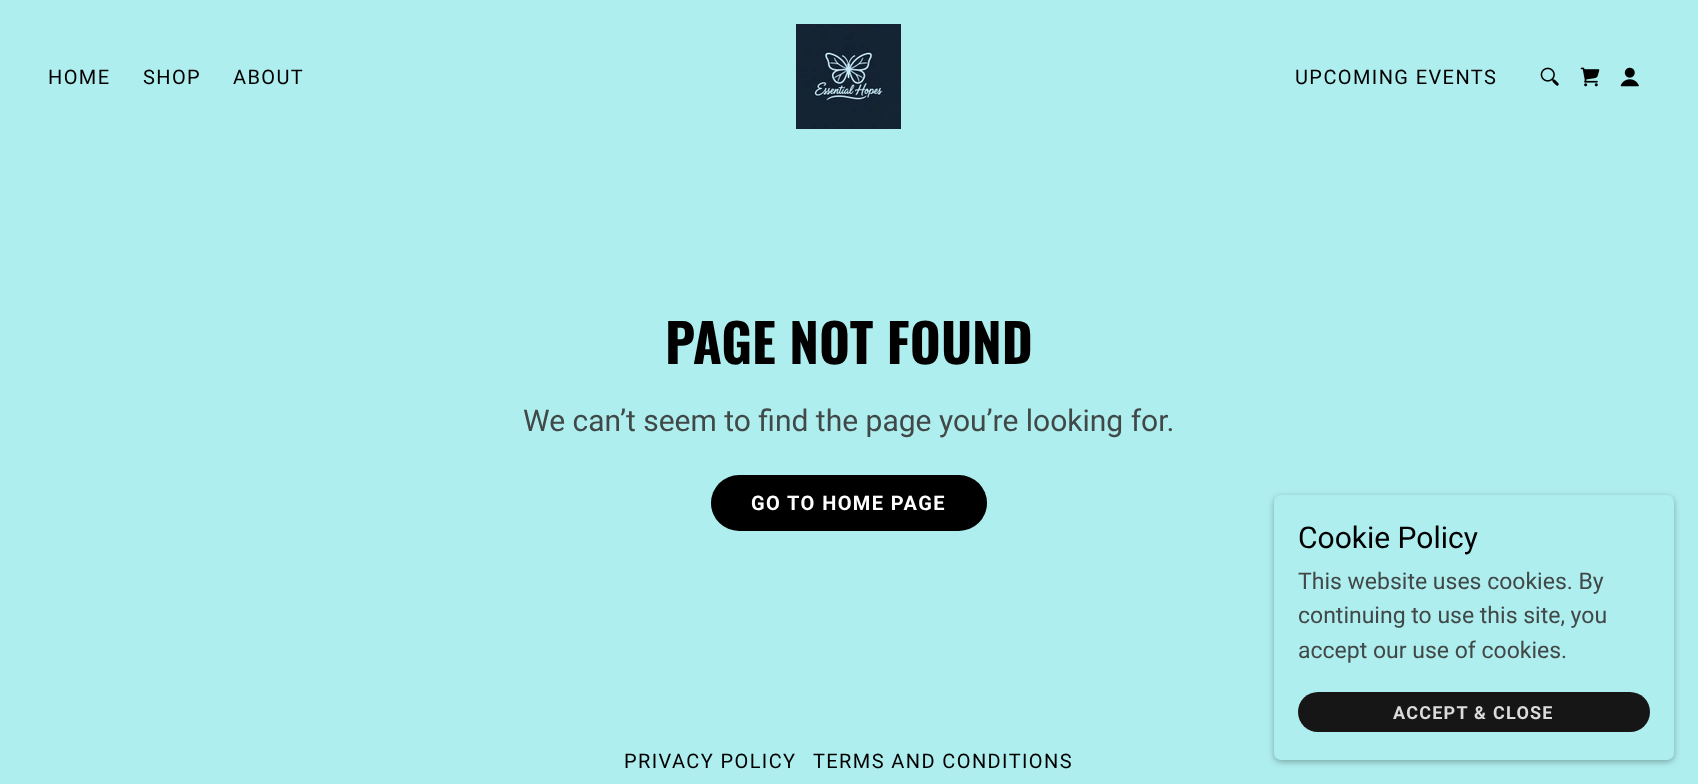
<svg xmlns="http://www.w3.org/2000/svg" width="1698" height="784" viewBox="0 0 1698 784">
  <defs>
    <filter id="blur1" x="-50%" y="-200%" width="200%" height="500%"><feGaussianBlur stdDeviation="3"/></filter>
  </defs>
  <rect width="100%" height="100%" fill="#afeeee"/>
  <text x="48" y="84" font-family="Roboto" font-size="20" letter-spacing="1.4" fill="#000000">HOME</text>
  <text x="143" y="84" font-family="Roboto" font-size="20" letter-spacing="1.4" fill="#000000">SHOP</text>
  <text x="233" y="84" font-family="Roboto" font-size="20" letter-spacing="1.4" fill="#000000">ABOUT</text>
  <image x="796" y="24" width="105" height="105" href="img1.png"/>
  <text x="1295" y="84" font-family="Roboto" font-size="20" letter-spacing="1.4" fill="#000000">UPCOMING EVENTS</text>
  <image x="1540" y="67" width="19" height="19" href="img2.png"/>
  <image x="1580" y="67" width="20" height="20" href="img3.png"/>
  <image x="1620" y="67" width="19" height="20" href="img4.png"/>
  <text x="665" y="364" font-family="Oswald" font-size="53" font-weight="bold" fill="#000000">PAGE NOT FOUND</text>
  <text x="523" y="431" font-family="Roboto" font-size="30" fill="#414848">We can’t seem to find the page you’re looking for.</text>
  <rect x="711" y="475" width="276" height="56" rx="28" fill="#000000"/>
  <text x="751" y="510" font-family="Roboto" font-size="20" font-weight="bold" letter-spacing="1.4" fill="#ffffff">GO TO HOME PAGE</text>
  <rect x="1274" y="497" width="400" height="265" rx="7" fill="#000000" fill-opacity="0.3" filter="url(#blur1)"/>
  <rect x="1274" y="495" width="400" height="265" rx="7" fill="#afeeee"/>
  <text x="1298" y="548" font-family="Roboto" font-size="30" fill="#000000">Cookie Policy</text>
  <text x="1298" y="589" font-family="Roboto" font-size="23" fill="#414848">This website uses cookies. By</text>
  <text x="1298" y="623" font-family="Roboto" font-size="23" fill="#414848">continuing to use this site, you</text>
  <text x="1298" y="658" font-family="Roboto" font-size="23" fill="#414848">accept our use of cookies.</text>
  <rect x="1298" y="692" width="352" height="40" rx="20" fill="#161616"/>
  <text x="1393" y="719" font-family="Roboto" font-size="18" font-weight="bold" letter-spacing="1.25" fill="#dbdbdb">ACCEPT &amp; CLOSE</text>
  <text x="624" y="768" font-family="Roboto" font-size="20" letter-spacing="1.4" fill="#000000">PRIVACY POLICY</text>
  <text x="813" y="768" font-family="Roboto" font-size="20" letter-spacing="1.4" fill="#000000">TERMS AND CONDITIONS</text>
</svg>
